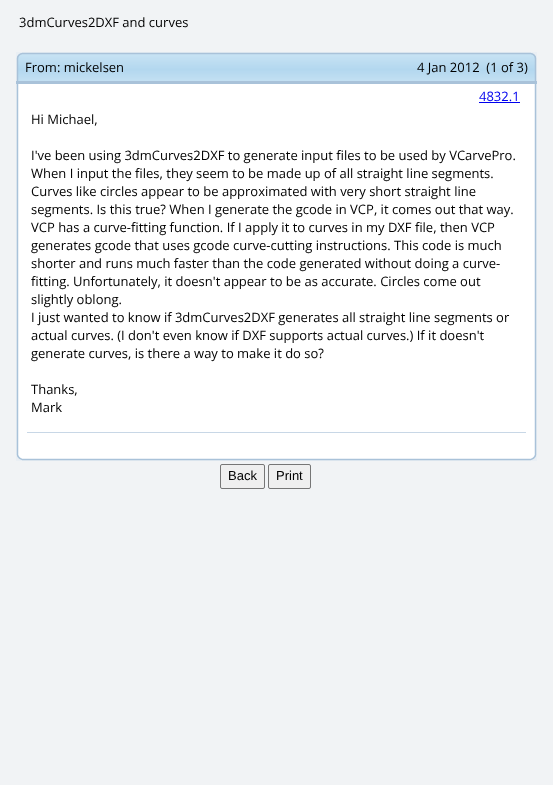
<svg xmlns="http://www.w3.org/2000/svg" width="553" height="785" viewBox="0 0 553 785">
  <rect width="100%" height="100%" fill="#f1f3f5"/>
  <text x="19" y="27" font-family="Open Sans" font-size="13" fill="#000000">3dmCurves2DXF and curves</text>
  <image x="16" y="52" width="6" height="6" href="img1.png"/>
  <image x="22" y="52" width="509" height="6" href="img2.png"/>
  <image x="531" y="52" width="6" height="6" href="img3.png"/>
  <image x="16" y="58" width="6" height="23" href="img4.png"/>
  <image x="22" y="58" width="509" height="23" href="img5.png"/>
  <text x="25" y="72" font-family="Open Sans" font-size="13" fill="#000000">From: mickelsen</text>
  <text x="417" y="72" font-family="Open Sans" font-size="13" fill="#000000" xml:space="preserve">4 Jan 2012  (1 of 3)</text>
  <image x="531" y="58" width="6" height="23" href="img6.png"/>
  <rect x="16" y="81" width="521" height="3" fill="#a9c2d9"/>
  <image x="16" y="84" width="6" height="371" href="img7.png"/>
  <rect x="22" y="84" width="509" height="371" fill="#ffffff"/>
  <text x="479" y="101" font-family="Open Sans" font-size="13" fill="#0000ee">4832.1</text>
  <rect x="479" y="102" width="41" height="1" fill="#0000ee"/>
  <text x="31" y="124" font-family="Open Sans" font-size="13" fill="#000000">Hi Michael,</text>
  <text x="31" y="160" font-family="Open Sans" font-size="13" fill="#000000">I've been using 3dmCurves2DXF to generate input files to be used by VCarvePro.</text>
  <text x="31" y="178" font-family="Open Sans" font-size="13" fill="#000000">When I input the files, they seem to be made up of all straight line segments.</text>
  <text x="31" y="196" font-family="Open Sans" font-size="13" fill="#000000">Curves like circles appear to be approximated with very short straight line</text>
  <text x="31" y="214" font-family="Open Sans" font-size="13" fill="#000000">segments. Is this true? When I generate the gcode in VCP, it comes out that way.</text>
  <text x="31" y="232" font-family="Open Sans" font-size="13" fill="#000000">VCP has a curve-fitting function. If I apply it to curves in my DXF file, then VCP</text>
  <text x="31" y="250" font-family="Open Sans" font-size="13" fill="#000000">generates gcode that uses gcode curve-cutting instructions. This code is much</text>
  <text x="31" y="268" font-family="Open Sans" font-size="13" fill="#000000">shorter and runs much faster than the code generated without doing a curve-</text>
  <text x="31" y="286" font-family="Open Sans" font-size="13" fill="#000000">fitting. Unfortunately, it doesn't appear to be as accurate. Circles come out</text>
  <text x="31" y="304" font-family="Open Sans" font-size="13" fill="#000000">slightly oblong.</text>
  <text x="31" y="322" font-family="Open Sans" font-size="13" fill="#000000">I just wanted to know if 3dmCurves2DXF generates all straight line segments or</text>
  <text x="31" y="340" font-family="Open Sans" font-size="13" fill="#000000">actual curves. (I don't even know if DXF supports actual curves.) If it doesn't</text>
  <text x="31" y="358" font-family="Open Sans" font-size="13" fill="#000000">generate curves, is there a way to make it do so?</text>
  <text x="31" y="394" font-family="Open Sans" font-size="13" fill="#000000">Thanks,</text>
  <text x="31" y="412" font-family="Open Sans" font-size="13" fill="#000000">Mark</text>
  <rect x="27" y="432" width="499" height="1" fill="#c8d7e6"/>
  <image x="531" y="84" width="6" height="371" href="img8.png"/>
  <image x="16" y="455" width="6" height="6" href="img9.png"/>
  <image x="22" y="455" width="509" height="6" href="img10.png"/>
  <image x="531" y="455" width="6" height="6" href="img11.png"/>
  <rect x="220.5" y="464.5" width="44" height="24" rx="1.5" fill="#efefef" stroke="#767676"/>
  <text x="228" y="480" font-family="Liberation Sans" font-size="13" fill="#000000">Back</text>
  <rect x="268.5" y="464.5" width="42" height="24" rx="1.5" fill="#efefef" stroke="#767676"/>
  <text x="276" y="480" font-family="Liberation Sans" font-size="13" fill="#000000">Print</text>
</svg>
